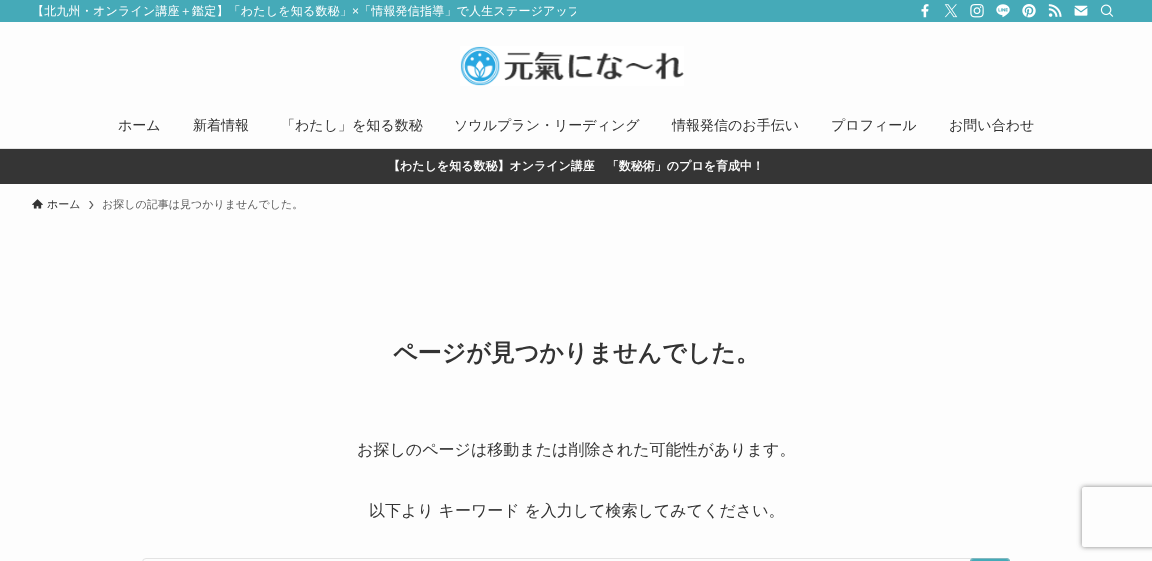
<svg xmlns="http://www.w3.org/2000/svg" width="1152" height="561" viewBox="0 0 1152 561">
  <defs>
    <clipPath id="clip1"><rect x="32" y="0" width="544" height="22"/></clipPath>
    <clipPath id="clip2"><path d="M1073 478H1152V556H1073ZM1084 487H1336C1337 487 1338 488 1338 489V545C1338 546 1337 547 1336 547H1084C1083 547 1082 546 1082 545V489C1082 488 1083 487 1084 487Z" clip-rule="evenodd"/></clipPath>
    <filter id="blur1" x="-50%" y="-200%" width="200%" height="500%"><feGaussianBlur stdDeviation="2.5"/></filter>
  </defs>
  <rect width="100%" height="100%" fill="#fdfdfd"/>
  <rect x="0" y="148" width="1152" height="1" fill="#e4e4e4"/>
  <rect x="0" y="0" width="1152" height="22" fill="#45aab8"/>
  <text x="32" y="15" font-family="WenQuanYi Zen Hei" font-size="12" font-weight="500" letter-spacing="0.2" fill="#ffffff">【北九州・オンライン講座＋鑑定】「わたしを知る数秘」</text>
  <text x="352" y="15" font-family="Liberation Sans" font-size="12" letter-spacing="0.2" fill="#ffffff">×</text>
  <g clip-path="url(#clip1)">
    <text x="359" y="15" font-family="WenQuanYi Zen Hei" font-size="12" font-weight="500" letter-spacing="0.2" fill="#ffffff">「情報発信指導」で人生ステージアップ</text>
  </g>
  <image x="921" y="4" width="8" height="14" href="img1.png"/>
  <image x="944" y="4" width="14" height="14" href="img2.png"/>
  <image x="970" y="4" width="14" height="14" href="img3.png"/>
  <image x="996" y="4" width="14" height="14" href="img4.png"/>
  <image x="1022" y="4" width="14" height="14" href="img5.png"/>
  <image x="1048" y="4" width="14" height="13" href="img6.png"/>
  <image x="1074" y="5" width="14" height="11" href="img7.png"/>
  <image x="1100" y="4" width="14" height="13" href="img8.png"/>
  <image x="460" y="46" width="224" height="40" href="img9.png"/>
  <text x="118" y="130" font-family="WenQuanYi Zen Hei" font-size="14" font-weight="500" fill="#333333">ホーム</text>
  <text x="193" y="130" font-family="WenQuanYi Zen Hei" font-size="14" font-weight="500" fill="#333333">新着情報</text>
  <text x="281" y="130" font-family="WenQuanYi Zen Hei" font-size="14" font-weight="500" fill="#333333">「わたし」を知る数秘</text>
  <text x="454" y="130" font-family="WenQuanYi Zen Hei" font-size="14" font-weight="500" fill="#333333">ソウルプラン・リーディング</text>
  <text x="672" y="130" font-family="WenQuanYi Zen Hei" font-size="14" font-weight="500" fill="#333333">情報発信のお手伝い</text>
  <text x="831" y="130" font-family="WenQuanYi Zen Hei" font-size="14" font-weight="500" fill="#333333">プロフィール</text>
  <text x="949" y="130" font-family="WenQuanYi Zen Hei" font-size="14" font-weight="500" fill="#333333">お問い合わせ</text>
  <rect x="0" y="149" width="1152" height="35" fill="#353535"/>
  <text x="388" y="170" font-family="WenQuanYi Zen Hei" font-size="12" font-weight="bold" fill="#ffffff">【わたしを知る数秘】オンライン講座　「数秘術」のプロを育成中！</text>
  <image x="32" y="199" width="11" height="10" href="img10.png"/>
  <text x="47" y="208" font-family="WenQuanYi Zen Hei" font-size="11" font-weight="500" fill="#333333">ホーム</text>
  <path d="M90.5 201H89L92 205L89 209H90.5L93.5 205Z" fill="#5b5b5b"/>
  <text x="102" y="208" font-family="WenQuanYi Zen Hei" font-size="11" font-weight="500" fill="#5b5b5b">お探しの記事は見つかりませんでした。</text>
  <text x="393" y="361" font-family="WenQuanYi Zen Hei" font-size="24" font-weight="bold" fill="#333333">ページが見つかりませんでした。</text>
  <text x="357" y="455" font-family="WenQuanYi Zen Hei" font-size="16" font-weight="500" fill="#333333">お探しのページは移動または削除された可能性があります。</text>
  <text x="369" y="516" font-family="WenQuanYi Zen Hei" font-size="16" font-weight="500" fill="#333333">以下より キーワード を入力して検索してみてください。</text>
  <rect x="142.5" y="558.5" width="867" height="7" rx="3.5" fill="none" stroke="#e3e3e3"/>
  <rect x="970" y="558" width="40" height="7" rx="4" fill="#45aab8"/>
  <rect x="970.5" y="558.5" width="39" height="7" rx="3.5" fill="none" stroke="#c7c7c7" stroke-opacity="0.5"/>
  <g clip-path="url(#clip2)">
    <rect x="1082" y="487" width="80" height="60" rx="2" fill="#808080" filter="url(#blur1)"/>
  </g>
</svg>
